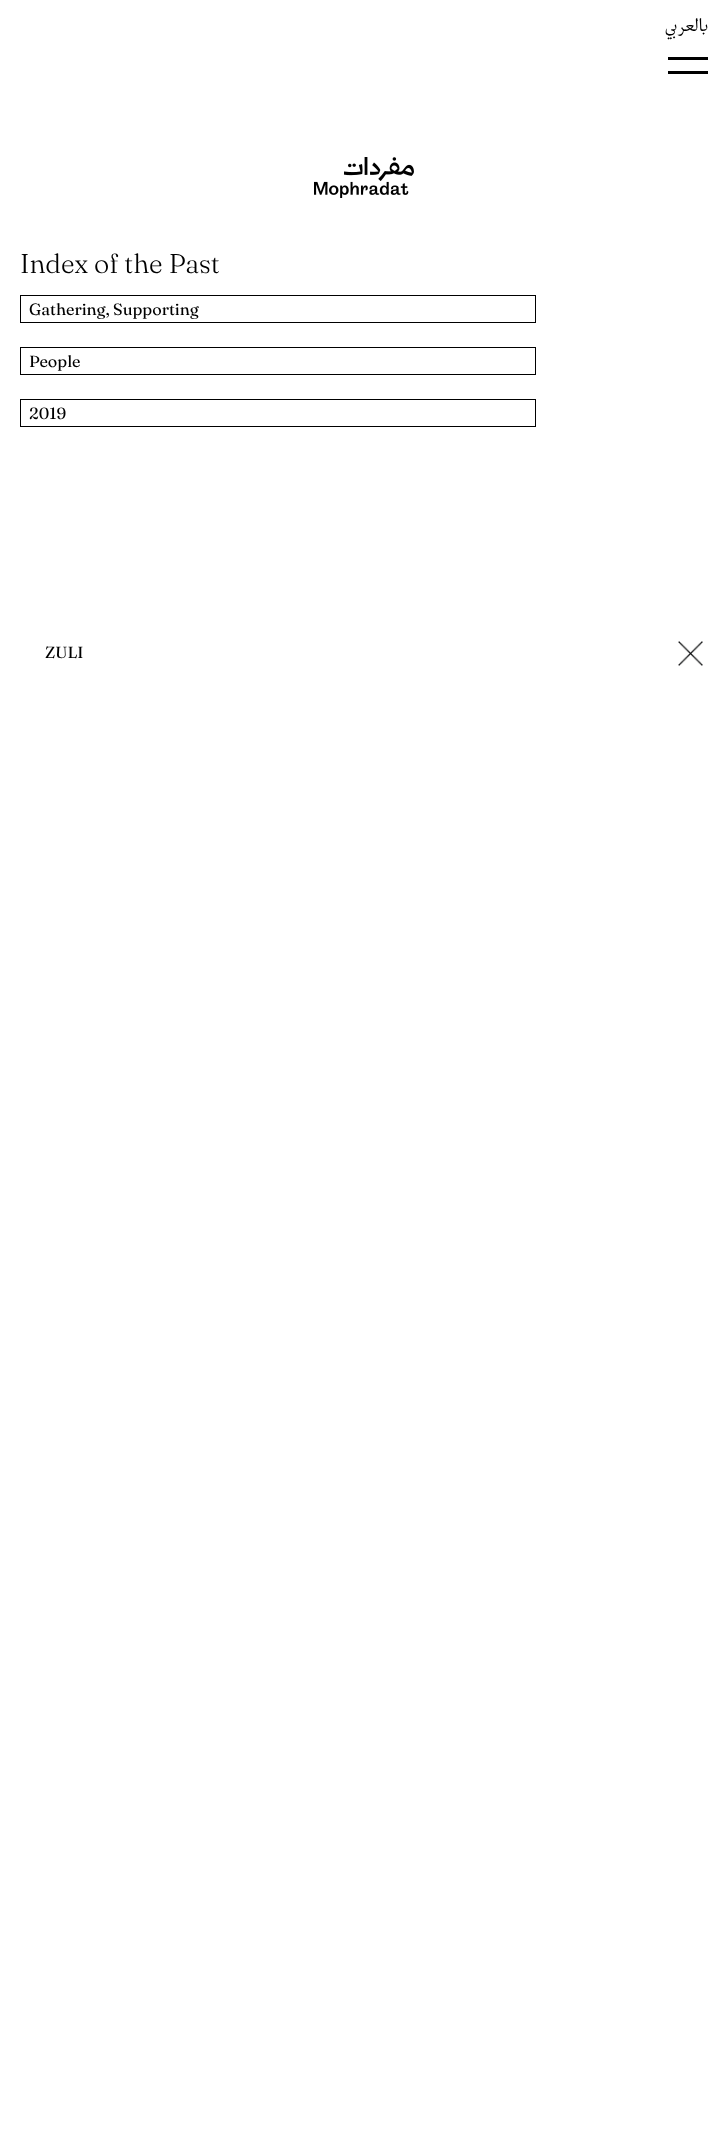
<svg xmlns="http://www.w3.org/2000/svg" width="728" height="2154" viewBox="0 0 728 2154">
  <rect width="100%" height="100%" fill="#ffffff"/>
  <text x="708" y="31" font-family="'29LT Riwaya'" font-size="18" direction="rtl" fill="#000000">بالعربي</text>
  <image x="314" y="157" width="100" height="41" href="img1.png"/>
  <rect x="668" y="57" width="40" height="3" fill="#000000"/>
  <rect x="668" y="71" width="40" height="3" fill="#000000"/>
  <text x="20" y="273" font-family="Fraunces" font-size="27" font-weight="300" fill="#000000">Index of the Past</text>
  <rect x="20.5" y="295.5" width="515" height="27" fill="none" stroke="#000000"/>
  <text x="29" y="315" font-family="Fraunces" font-size="16.25" fill="#000000">Gathering, Supporting</text>
  <rect x="20.5" y="347.5" width="515" height="27" fill="none" stroke="#000000"/>
  <text x="29" y="367" font-family="Fraunces" font-size="16.25" fill="#000000">People</text>
  <rect x="20.5" y="399.5" width="515" height="27" fill="none" stroke="#000000"/>
  <text x="29" y="419" font-family="Fraunces" font-size="16.25" fill="#000000">2019</text>
  <text x="45" y="658" font-family="Fraunces" font-size="16.25" fill="#000000">ZULI</text>
  <image x="678" y="641" width="25" height="25" href="img2.png"/>
</svg>
